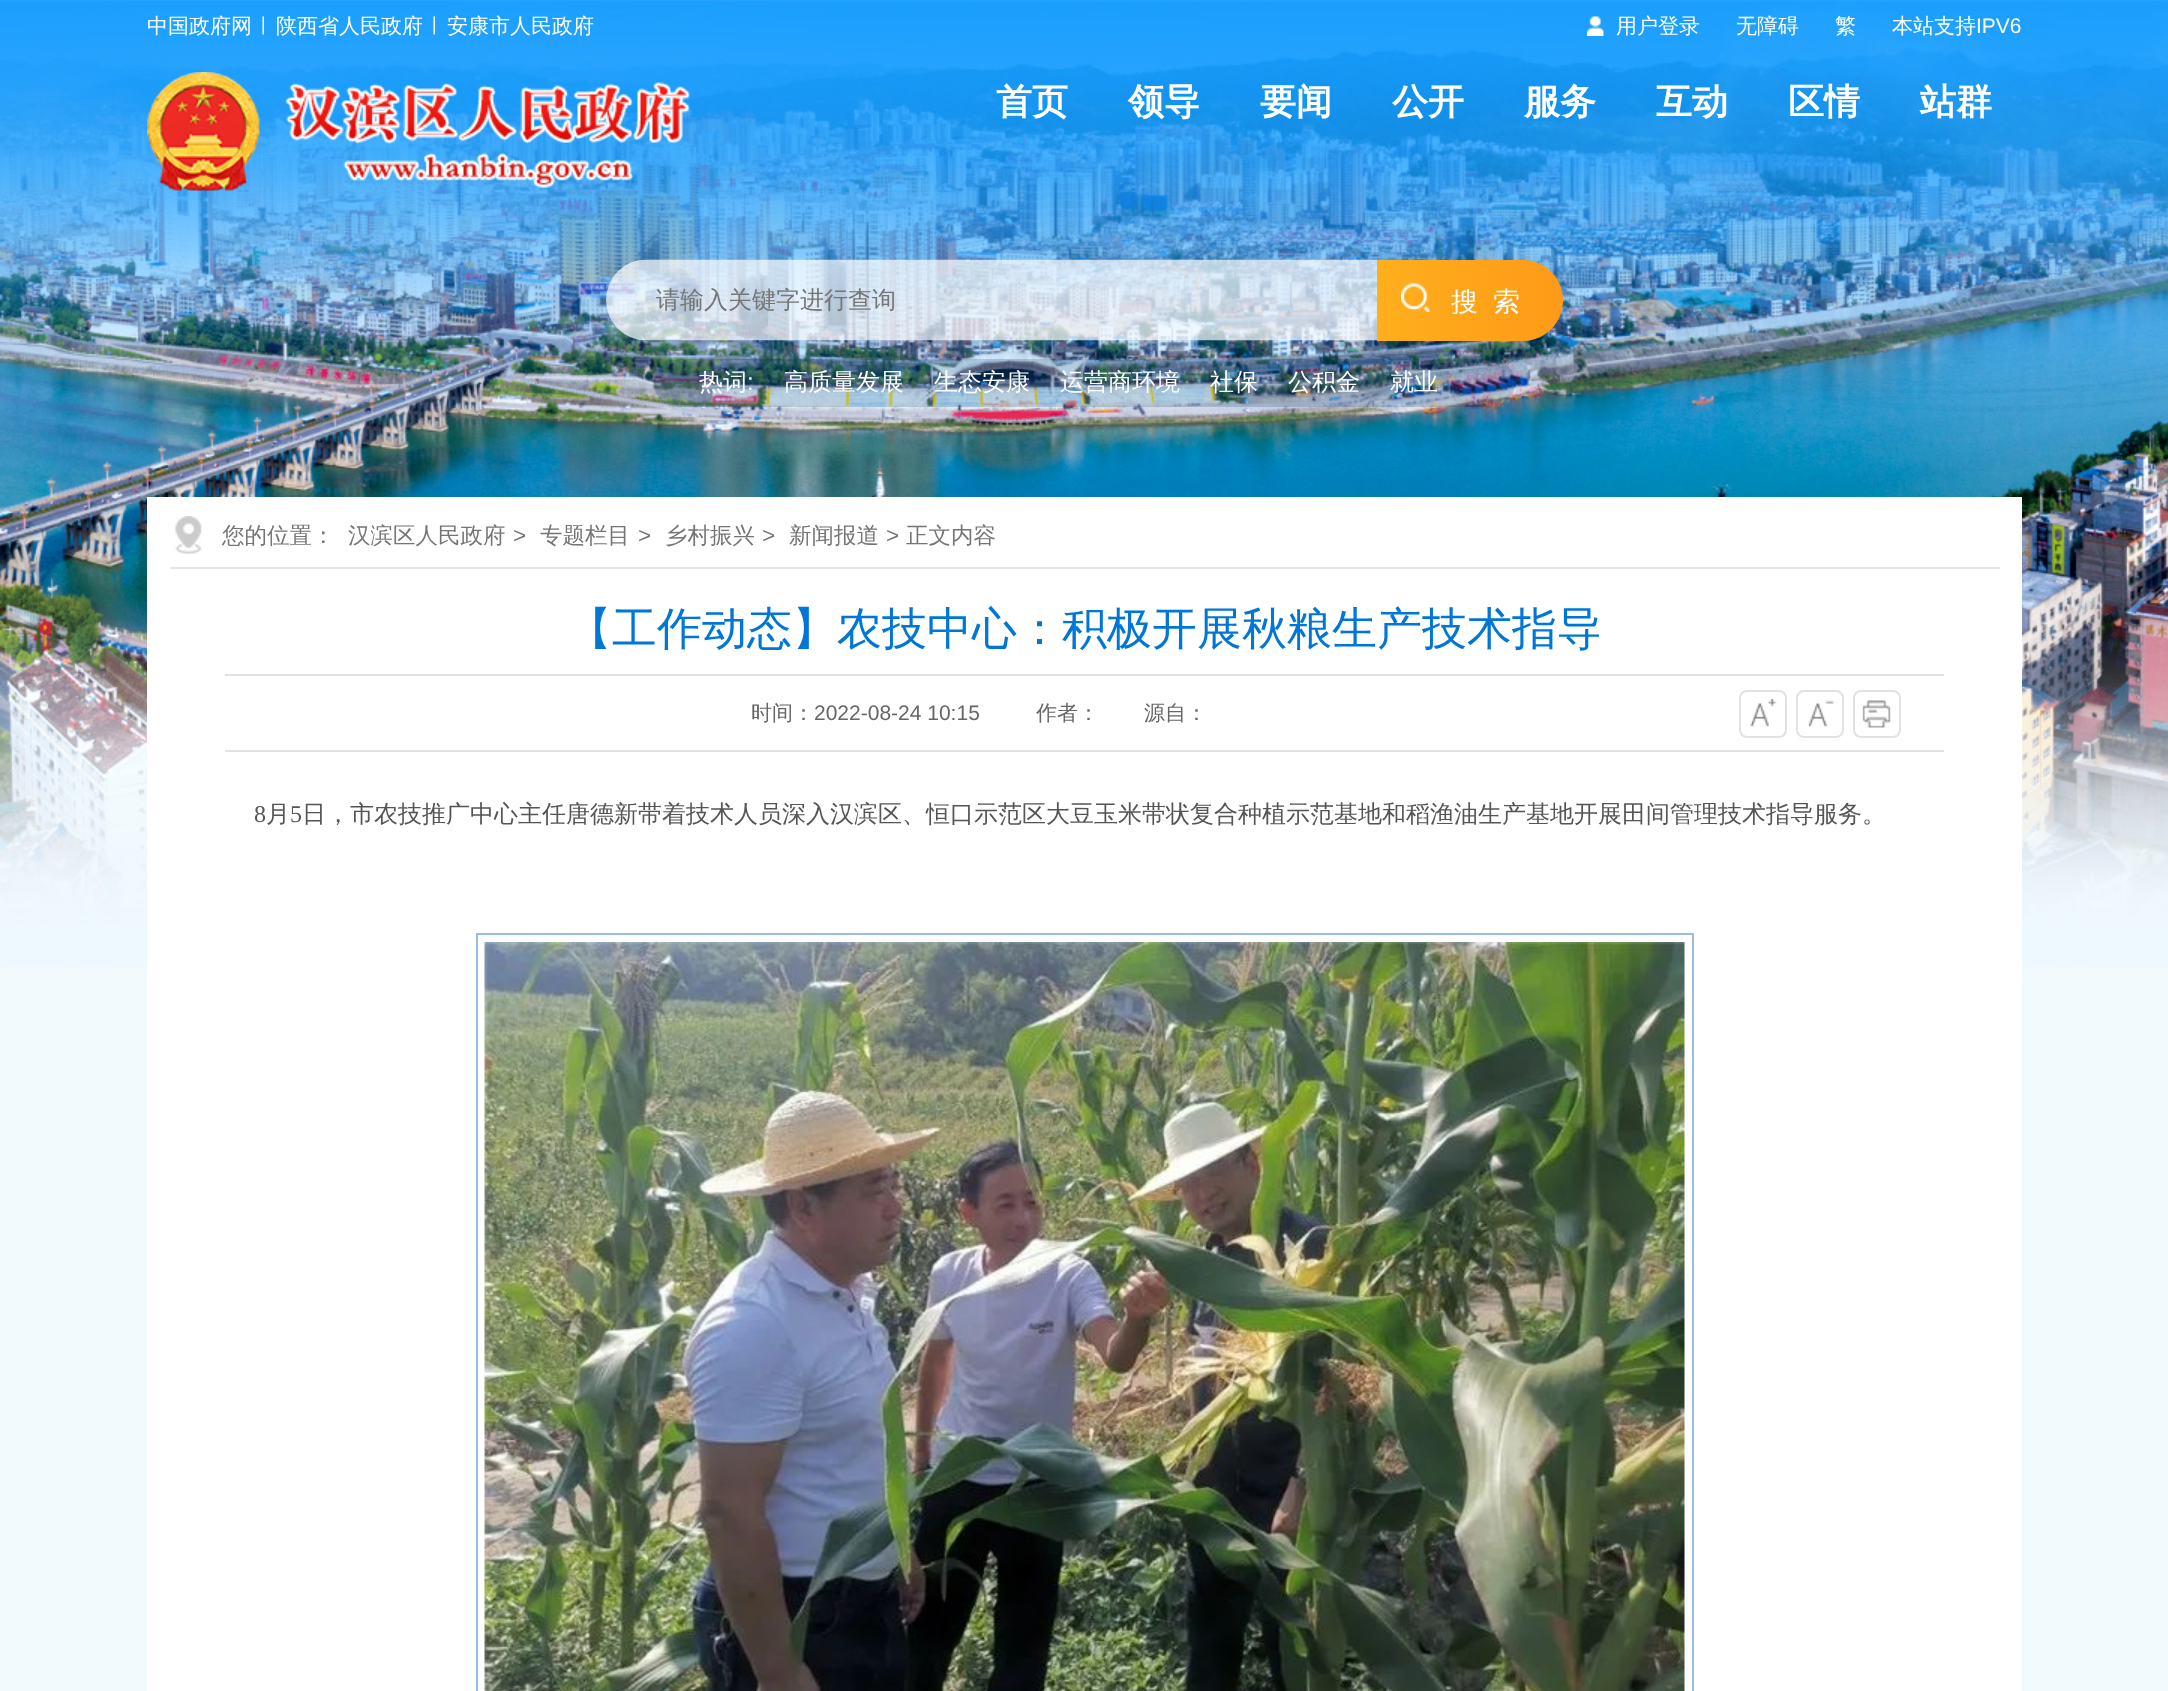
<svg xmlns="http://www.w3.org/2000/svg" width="2168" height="1691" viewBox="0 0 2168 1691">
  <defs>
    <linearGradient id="g1" gradientUnits="userSpaceOnUse" x1="1377" y1="300" x2="1563" y2="300"><stop offset="0" stop-color="#feaf1d"/><stop offset="1" stop-color="#fe9a18"/></linearGradient>
    <clipPath id="clip1"><rect x="1377" y="260" width="186" height="54"/></clipPath>
  </defs>
  <rect width="100%" height="100%" fill="#f3fafe"/>
  <image x="0" y="0" width="2168" height="969" href="img1.png"/>
  <text x="147" y="33" font-family="WenQuanYi Zen Hei" font-size="21" font-weight="500" fill="#ffffff">中国政府网</text>
  <image x="262" y="16" width="2" height="19" href="img2.png"/>
  <text x="276" y="33" font-family="WenQuanYi Zen Hei" font-size="21" font-weight="500" fill="#ffffff">陕西省人民政府</text>
  <image x="433" y="16" width="2" height="19" href="img3.png"/>
  <text x="447" y="33" font-family="WenQuanYi Zen Hei" font-size="21" font-weight="500" fill="#ffffff">安康市人民政府</text>
  <image x="1587" y="16" width="17" height="20" href="img4.png"/>
  <text x="1616" y="33" font-family="WenQuanYi Zen Hei" font-size="21" font-weight="500" fill="#ffffff">用户登录</text>
  <text x="1736" y="33" font-family="WenQuanYi Zen Hei" font-size="21" font-weight="500" fill="#ffffff">无障碍</text>
  <text x="1835" y="33" font-family="WenQuanYi Zen Hei" font-size="21" font-weight="500" fill="#ffffff">繁</text>
  <text x="1892" y="33" font-family="WenQuanYi Zen Hei" font-size="21" font-weight="500" fill="#ffffff">本站支持</text>
  <text x="1976" y="33" font-family="Liberation Sans" font-size="21" fill="#ffffff">IPV6</text>
  <image x="147" y="72" width="543" height="120" href="img5.png"/>
  <text x="996" y="114" font-family="WenQuanYi Zen Hei" font-size="36" font-weight="bold" fill="#ffffff">首页</text>
  <text x="1128" y="114" font-family="WenQuanYi Zen Hei" font-size="36" font-weight="bold" fill="#ffffff">领导</text>
  <text x="1260" y="114" font-family="WenQuanYi Zen Hei" font-size="36" font-weight="bold" fill="#ffffff">要闻</text>
  <text x="1392" y="114" font-family="WenQuanYi Zen Hei" font-size="36" font-weight="bold" fill="#ffffff">公开</text>
  <text x="1524" y="114" font-family="WenQuanYi Zen Hei" font-size="36" font-weight="bold" fill="#ffffff">服务</text>
  <text x="1656" y="114" font-family="WenQuanYi Zen Hei" font-size="36" font-weight="bold" fill="#ffffff">互动</text>
  <text x="1788" y="114" font-family="WenQuanYi Zen Hei" font-size="36" font-weight="bold" fill="#ffffff">区情</text>
  <text x="1920" y="114" font-family="WenQuanYi Zen Hei" font-size="36" font-weight="bold" fill="#ffffff">站群</text>
  <image x="606" y="259" width="777" height="82" href="img6.png"/>
  <text x="656" y="308" font-family="WenQuanYi Zen Hei" font-size="24" font-weight="500" fill="#757575">请输入关键字进行查询</text>
  <path d="M1377 260H1522.5C1545 260 1563 278 1563 300.5C1563 323 1545 341 1522.5 341H1377Z" fill="url(#g1)"/>
  <image x="1401" y="283" width="29" height="29" href="img7.png"/>
  <g clip-path="url(#clip1)">
    <text x="1451" y="311" font-family="WenQuanYi Zen Hei" font-size="27" font-weight="500" letter-spacing="15" fill="#ffffff">搜索</text>
  </g>
  <rect x="654" y="359" width="861" height="48" rx="24" fill="#00416e" fill-opacity="0.2"/>
  <text x="699" y="390" font-family="WenQuanYi Zen Hei" font-size="24" font-weight="500" fill="#ffffff">热词</text>
  <text x="747" y="390" font-family="Liberation Sans" font-size="24" fill="#ffffff">:</text>
  <text x="784" y="390" font-family="WenQuanYi Zen Hei" font-size="24" font-weight="500" fill="#ffffff">高质量发展</text>
  <text x="934" y="390" font-family="WenQuanYi Zen Hei" font-size="24" font-weight="500" fill="#ffffff">生态安康</text>
  <text x="1060" y="390" font-family="WenQuanYi Zen Hei" font-size="24" font-weight="500" fill="#ffffff">运营商环境</text>
  <text x="1210" y="390" font-family="WenQuanYi Zen Hei" font-size="24" font-weight="500" fill="#ffffff">社保</text>
  <text x="1288" y="390" font-family="WenQuanYi Zen Hei" font-size="24" font-weight="500" fill="#ffffff">公积金</text>
  <text x="1390" y="390" font-family="WenQuanYi Zen Hei" font-size="24" font-weight="500" fill="#ffffff">就业</text>
  <rect x="147" y="497" width="1875" height="1194" fill="#ffffff"/>
  <image x="173" y="516" width="29" height="38" href="img8.png"/>
  <rect x="170" y="567" width="1830" height="2" fill="#e7e5e5"/>
  <text x="222" y="543" font-family="WenQuanYi Zen Hei" font-size="22.5" font-weight="500" fill="#757575">您的位置：</text>
  <text x="348" y="543" font-family="WenQuanYi Zen Hei" font-size="22.5" font-weight="500" fill="#757575">汉滨区人民政府</text>
  <text x="513" y="543" font-family="Liberation Sans" font-size="22.5" fill="#757575">&gt;</text>
  <text x="540" y="543" font-family="WenQuanYi Zen Hei" font-size="22.5" font-weight="500" fill="#757575">专题栏目</text>
  <text x="638" y="543" font-family="Liberation Sans" font-size="22.5" fill="#757575">&gt;</text>
  <text x="665" y="543" font-family="WenQuanYi Zen Hei" font-size="22.5" font-weight="500" fill="#757575">乡村振兴</text>
  <text x="762" y="543" font-family="Liberation Sans" font-size="22.5" fill="#757575">&gt;</text>
  <text x="789" y="543" font-family="WenQuanYi Zen Hei" font-size="22.5" font-weight="500" fill="#757575">新闻报道</text>
  <text x="886" y="543" font-family="Liberation Sans" font-size="22.5" fill="#757575">&gt;</text>
  <text x="906" y="543" font-family="WenQuanYi Zen Hei" font-size="22.5" font-weight="500" fill="#757575">正文内容</text>
  <text x="567" y="644" font-family="WenQuanYi Zen Hei" font-size="45" font-weight="500" fill="#0076d6">【工作动态】农技中心：积极开展秋粮生产技术指导</text>
  <rect x="225" y="674" width="1719" height="2" fill="#e2e2e2"/>
  <rect x="225" y="750" width="1719" height="2" fill="#e2e2e2"/>
  <text x="751" y="720" font-family="WenQuanYi Zen Hei" font-size="21" font-weight="500" fill="#666666">时间：</text>
  <text x="814" y="720" font-family="Liberation Sans" font-size="21" fill="#666666">2022-08-24 10:15</text>
  <text x="1036" y="720" font-family="WenQuanYi Zen Hei" font-size="21" font-weight="500" fill="#666666">作者：</text>
  <text x="1144" y="720" font-family="WenQuanYi Zen Hei" font-size="21" font-weight="500" fill="#666666">源自：</text>
  <rect x="1740" y="691" width="46" height="46" rx="7" fill="none" stroke="#e2e2e2" stroke-width="2"/>
  <image x="1750" y="699" width="27" height="28" href="img9.png"/>
  <rect x="1797" y="691" width="46" height="46" rx="7" fill="none" stroke="#e2e2e2" stroke-width="2"/>
  <image x="1808" y="700" width="26" height="27" href="img10.png"/>
  <rect x="1854" y="691" width="46" height="46" rx="7" fill="none" stroke="#e2e2e2" stroke-width="2"/>
  <image x="1862" y="700" width="29" height="28" href="img11.png"/>
  <text x="254" y="822" font-family="Liberation Serif" font-size="24" fill="#555555">8</text>
  <text x="266" y="822" font-family="WenQuanYi Zen Hei" font-size="24" font-weight="500" fill="#555555">月</text>
  <text x="290" y="822" font-family="Liberation Serif" font-size="24" fill="#555555">5</text>
  <text x="302" y="822" font-family="WenQuanYi Zen Hei" font-size="24" font-weight="500" fill="#555555">日，市农技推广中心主任唐德新带着技术人员深入汉滨区、恒口示范区大豆玉米带状复合种植示范基地和稻渔油生产基地开展田间管理技术指导服务。</text>
  <rect x="477" y="934" width="1216" height="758" fill="none" stroke="#9bbde3" stroke-width="2"/>
  <image x="484" y="942" width="1201" height="749" href="img12.png"/>
</svg>
